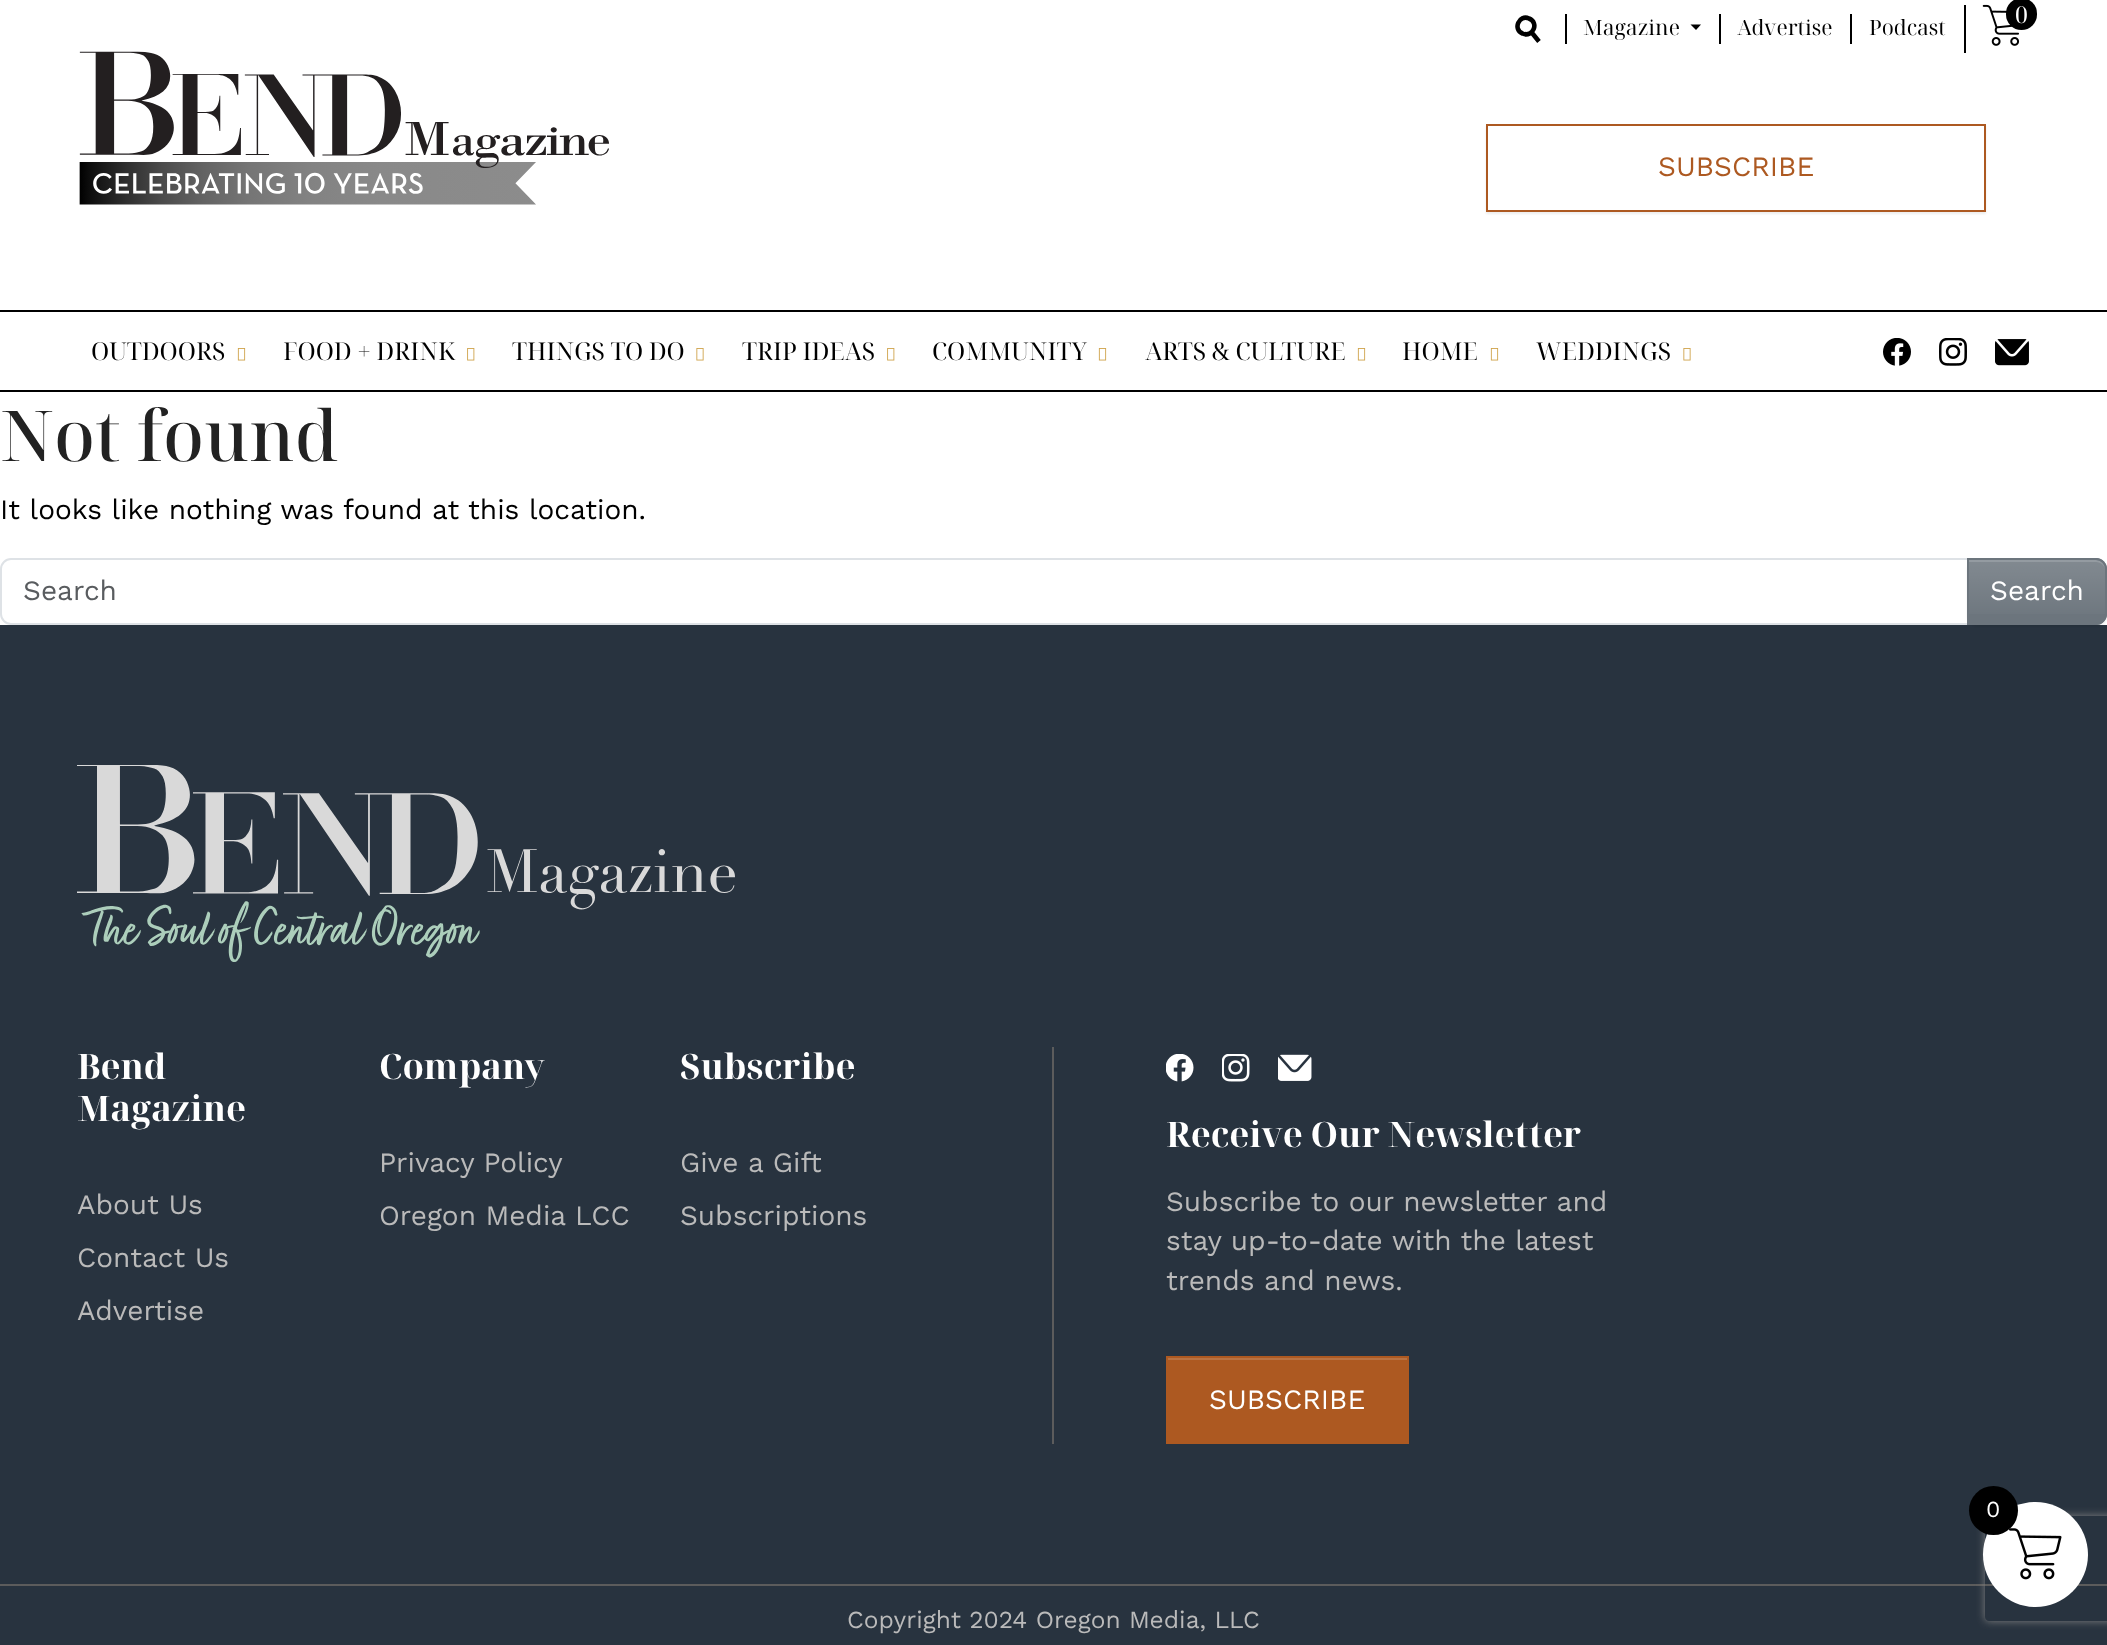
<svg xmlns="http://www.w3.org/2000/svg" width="2107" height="1645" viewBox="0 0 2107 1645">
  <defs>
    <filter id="blur1" x="-50%" y="-200%" width="200%" height="500%"><feGaussianBlur stdDeviation="1"/></filter>
    <clipPath id="clip1"><path d="M1967 558H2096C2102 558 2107 563 2107 569V614C2107 620 2102 625 2096 625H1967Z"/></clipPath>
    <linearGradient id="g1" gradientUnits="userSpaceOnUse" x1="2037" y1="560" x2="2037" y2="623"><stop offset="0" stop-color="#ffffff" stop-opacity="0.15"/><stop offset="1" stop-color="#ffffff" stop-opacity="0"/></linearGradient>
    <clipPath id="clip2"><path d="M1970 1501H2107V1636H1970ZM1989 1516H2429C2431 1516 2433 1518 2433 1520V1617C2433 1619 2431 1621 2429 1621H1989C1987 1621 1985 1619 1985 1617V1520C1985 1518 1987 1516 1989 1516Z" clip-rule="evenodd"/></clipPath>
    <filter id="blur2" x="-50%" y="-200%" width="200%" height="500%"><feGaussianBlur stdDeviation="4.5"/></filter>
  </defs>
  <rect width="100%" height="100%" fill="#ffffff"/>
  <image x="79" y="51" width="531" height="154" href="img1.png"/>
  <path d="M1529 18.5C1539.5 22.5 1533 38 1522.5 33.5C1512.5 29.5 1519 14 1529 18.5ZM1532.5 33.5L1539 41.5" fill="none" stroke="#000000" stroke-width="4.6"/>
  <rect x="1565" y="14" width="2" height="30" fill="#000000"/>
  <text x="1583" y="35" font-family="Noto Serif Display" font-size="21" fill="#000000">Magazine</text>
  <path d="M1690.5 24.5H1701L1696 30Z" fill="#000000"/>
  <rect x="1719" y="14" width="2" height="30" fill="#000000"/>
  <text x="1737" y="35" font-family="Noto Serif Display" font-size="21" fill="#000000">Advertise</text>
  <rect x="1850" y="14" width="2" height="30" fill="#000000"/>
  <text x="1869" y="35" font-family="Noto Serif Display" font-size="21" fill="#000000">Podcast</text>
  <rect x="1964" y="5" width="2" height="48" fill="#000000"/>
  <image x="1982" y="4" width="38" height="42" href="img2.png"/>
  <rect x="2006" y="-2" width="31" height="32" rx="15.5" fill="#000000"/>
  <text x="2015" y="23" font-family="Noto Serif Display" font-size="23" fill="#ffffff">0</text>
  <rect x="1486" y="126" width="500" height="88" fill="#000000" fill-opacity="0.07" filter="url(#blur1)"/>
  <rect x="1487" y="125" width="498" height="86" fill="#ffffff" stroke="#ad5921" stroke-width="2"/>
  <text x="1658" y="176" font-family="Work Sans" font-size="28" fill="#ad5921">SUBSCRIBE</text>
  <rect x="0" y="310" width="2107" height="2" fill="#000000"/>
  <rect x="0" y="390" width="2107" height="2" fill="#000000"/>
  <text x="91" y="360" font-family="Noto Serif Display" font-size="24.5" fill="#000000">OUTDOORS</text>
  <image x="237" y="348" width="9" height="13" href="img3.png"/>
  <text x="283" y="360" font-family="Noto Serif Display" font-size="24.5" fill="#000000">FOOD + DRINK</text>
  <image x="467" y="348" width="8" height="13" href="img4.png"/>
  <text x="512" y="360" font-family="Noto Serif Display" font-size="24.5" fill="#000000">THINGS TO DO</text>
  <image x="696" y="348" width="8" height="13" href="img5.png"/>
  <text x="742" y="360" font-family="Noto Serif Display" font-size="24.5" fill="#000000">TRIP IDEAS</text>
  <image x="887" y="348" width="8" height="13" href="img4.png"/>
  <text x="932" y="360" font-family="Noto Serif Display" font-size="24.5" fill="#000000">COMMUNITY</text>
  <image x="1098" y="348" width="9" height="13" href="img3.png"/>
  <text x="1145" y="360" font-family="Noto Serif Display" font-size="24.5" fill="#000000">ARTS &amp; CULTURE</text>
  <image x="1357" y="348" width="9" height="13" href="img3.png"/>
  <text x="1402" y="360" font-family="Noto Serif Display" font-size="24.5" fill="#000000">HOME</text>
  <image x="1490" y="348" width="9" height="13" href="img3.png"/>
  <text x="1536" y="360" font-family="Noto Serif Display" font-size="24.5" fill="#000000">WEDDINGS</text>
  <image x="1683" y="348" width="8" height="13" href="img5.png"/>
  <image x="1883" y="338" width="28" height="28" href="img6.png"/>
  <image x="1939" y="338" width="28" height="28" href="img7.png"/>
  <image x="1995" y="339" width="34" height="27" href="img8.png"/>
  <text x="0" y="461" font-family="Noto Serif Display" font-size="70" font-weight="500" fill="#222222">Not found</text>
  <text x="0" y="519" font-family="Work Sans" font-size="28" fill="#000000">It looks like nothing was found at this location.</text>
  <path d="M11 559H1968V624H11C5.5 624 1 619.5 1 614V569C1 563.5 5.5 559 11 559Z" fill="none" stroke="#dee2e6" stroke-width="2"/>
  <text x="23" y="600" font-family="Work Sans" font-size="28" fill="#595c5f">Search</text>
  <rect x="0" y="625" width="2107" height="959" fill="#28333f"/>
  <rect x="1967" y="560" width="140" height="67" rx="11" fill="#000000" fill-opacity="0.07" filter="url(#blur1)"/>
  <path d="M1967 558H2096C2102 558 2107 563 2107 569V614C2107 620 2102 625 2096 625H1967Z" fill="#6c757d"/>
  <g clip-path="url(#clip1)">
    <rect x="1969" y="560" width="138" height="54" fill="url(#g1)"/>
  </g>
  <path d="M1969 562H2096C2101 562 2105 566 2105 570V569C2105 564 2101 560 2096 560H1969Z" fill="#949ba1"/>
  <path d="M1968 559H2096C2101.5 559 2106 563.5 2106 569V614C2106 619.5 2101.5 624 2096 624H1968Z" fill="none" stroke="#6c757d" stroke-width="2"/>
  <text x="1990" y="600" font-family="Work Sans" font-size="28" fill="#ffffff">Search</text>
  <image x="77" y="765" width="658" height="197" href="img9.png"/>
  <rect x="1052" y="1047" width="2" height="397" fill="#5c5c5c"/>
  <text x="77" y="1079" font-family="Noto Serif Display" font-size="35" font-weight="bold" fill="#ffffff">Bend</text>
  <text x="77" y="1121" font-family="Noto Serif Display" font-size="35" font-weight="bold" fill="#ffffff">Magazine</text>
  <text x="77" y="1214" font-family="Work Sans" font-size="28" fill="#bababa">About Us</text>
  <text x="77" y="1267" font-family="Work Sans" font-size="28" fill="#bababa">Contact Us</text>
  <text x="77" y="1320" font-family="Work Sans" font-size="28" fill="#bababa">Advertise</text>
  <text x="379" y="1079" font-family="Noto Serif Display" font-size="35" font-weight="bold" fill="#ffffff">Company</text>
  <text x="379" y="1172" font-family="Work Sans" font-size="28" fill="#bababa">Privacy Policy</text>
  <text x="379" y="1225" font-family="Work Sans" font-size="28" fill="#bababa">Oregon Media LCC</text>
  <text x="680" y="1079" font-family="Noto Serif Display" font-size="35" font-weight="bold" fill="#ffffff">Subscribe</text>
  <text x="680" y="1172" font-family="Work Sans" font-size="28" fill="#bababa">Give a Gift</text>
  <text x="680" y="1225" font-family="Work Sans" font-size="28" fill="#bababa">Subscriptions</text>
  <image x="1166" y="1054" width="28" height="28" href="img10.png"/>
  <image x="1222" y="1054" width="28" height="28" href="img11.png"/>
  <image x="1278" y="1054" width="34" height="27" href="img12.png"/>
  <text x="1166" y="1147" font-family="Noto Serif Display" font-size="35" font-weight="bold" fill="#ffffff">Receive Our Newsletter</text>
  <text x="1166" y="1211" font-family="Work Sans" font-size="28" fill="#bababa">Subscribe to our newsletter and</text>
  <text x="1166" y="1250" font-family="Work Sans" font-size="28" fill="#bababa">stay up-to-date with the latest</text>
  <text x="1166" y="1290" font-family="Work Sans" font-size="28" fill="#bababa">trends and news.</text>
  <rect x="1168" y="1360" width="239" height="82" fill="#ad5921"/>
  <rect x="1167" y="1358" width="240" height="2" fill="#b97242"/>
  <rect x="1167" y="1357" width="241" height="86" fill="none" stroke="#ad5921" stroke-width="2"/>
  <text x="1209" y="1409" font-family="Work Sans" font-size="28" fill="#ffffff">SUBSCRIBE</text>
  <rect x="0" y="1586" width="2107" height="59" fill="#28333f"/>
  <rect x="0" y="1584" width="2107" height="2" fill="#5c5c5c"/>
  <g clip-path="url(#clip2)">
    <rect x="1985" y="1516" width="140" height="105" rx="4" fill="#808080" filter="url(#blur2)"/>
  </g>
  <circle cx="2035.5" cy="1554.5" r="52.5" fill="#ffffff"/>
  <image x="2009" y="1528" width="53" height="52" href="img13.png"/>
  <circle cx="1993.5" cy="1510.5" r="24.5" fill="#000000"/>
  <text x="1986" y="1517" font-family="Work Sans" font-size="23" fill="#ffffff">0</text>
  <text x="847" y="1628" font-family="Work Sans" font-size="24.5" fill="#bababa">Copyright 2024 Oregon Media, LLC</text>
</svg>
